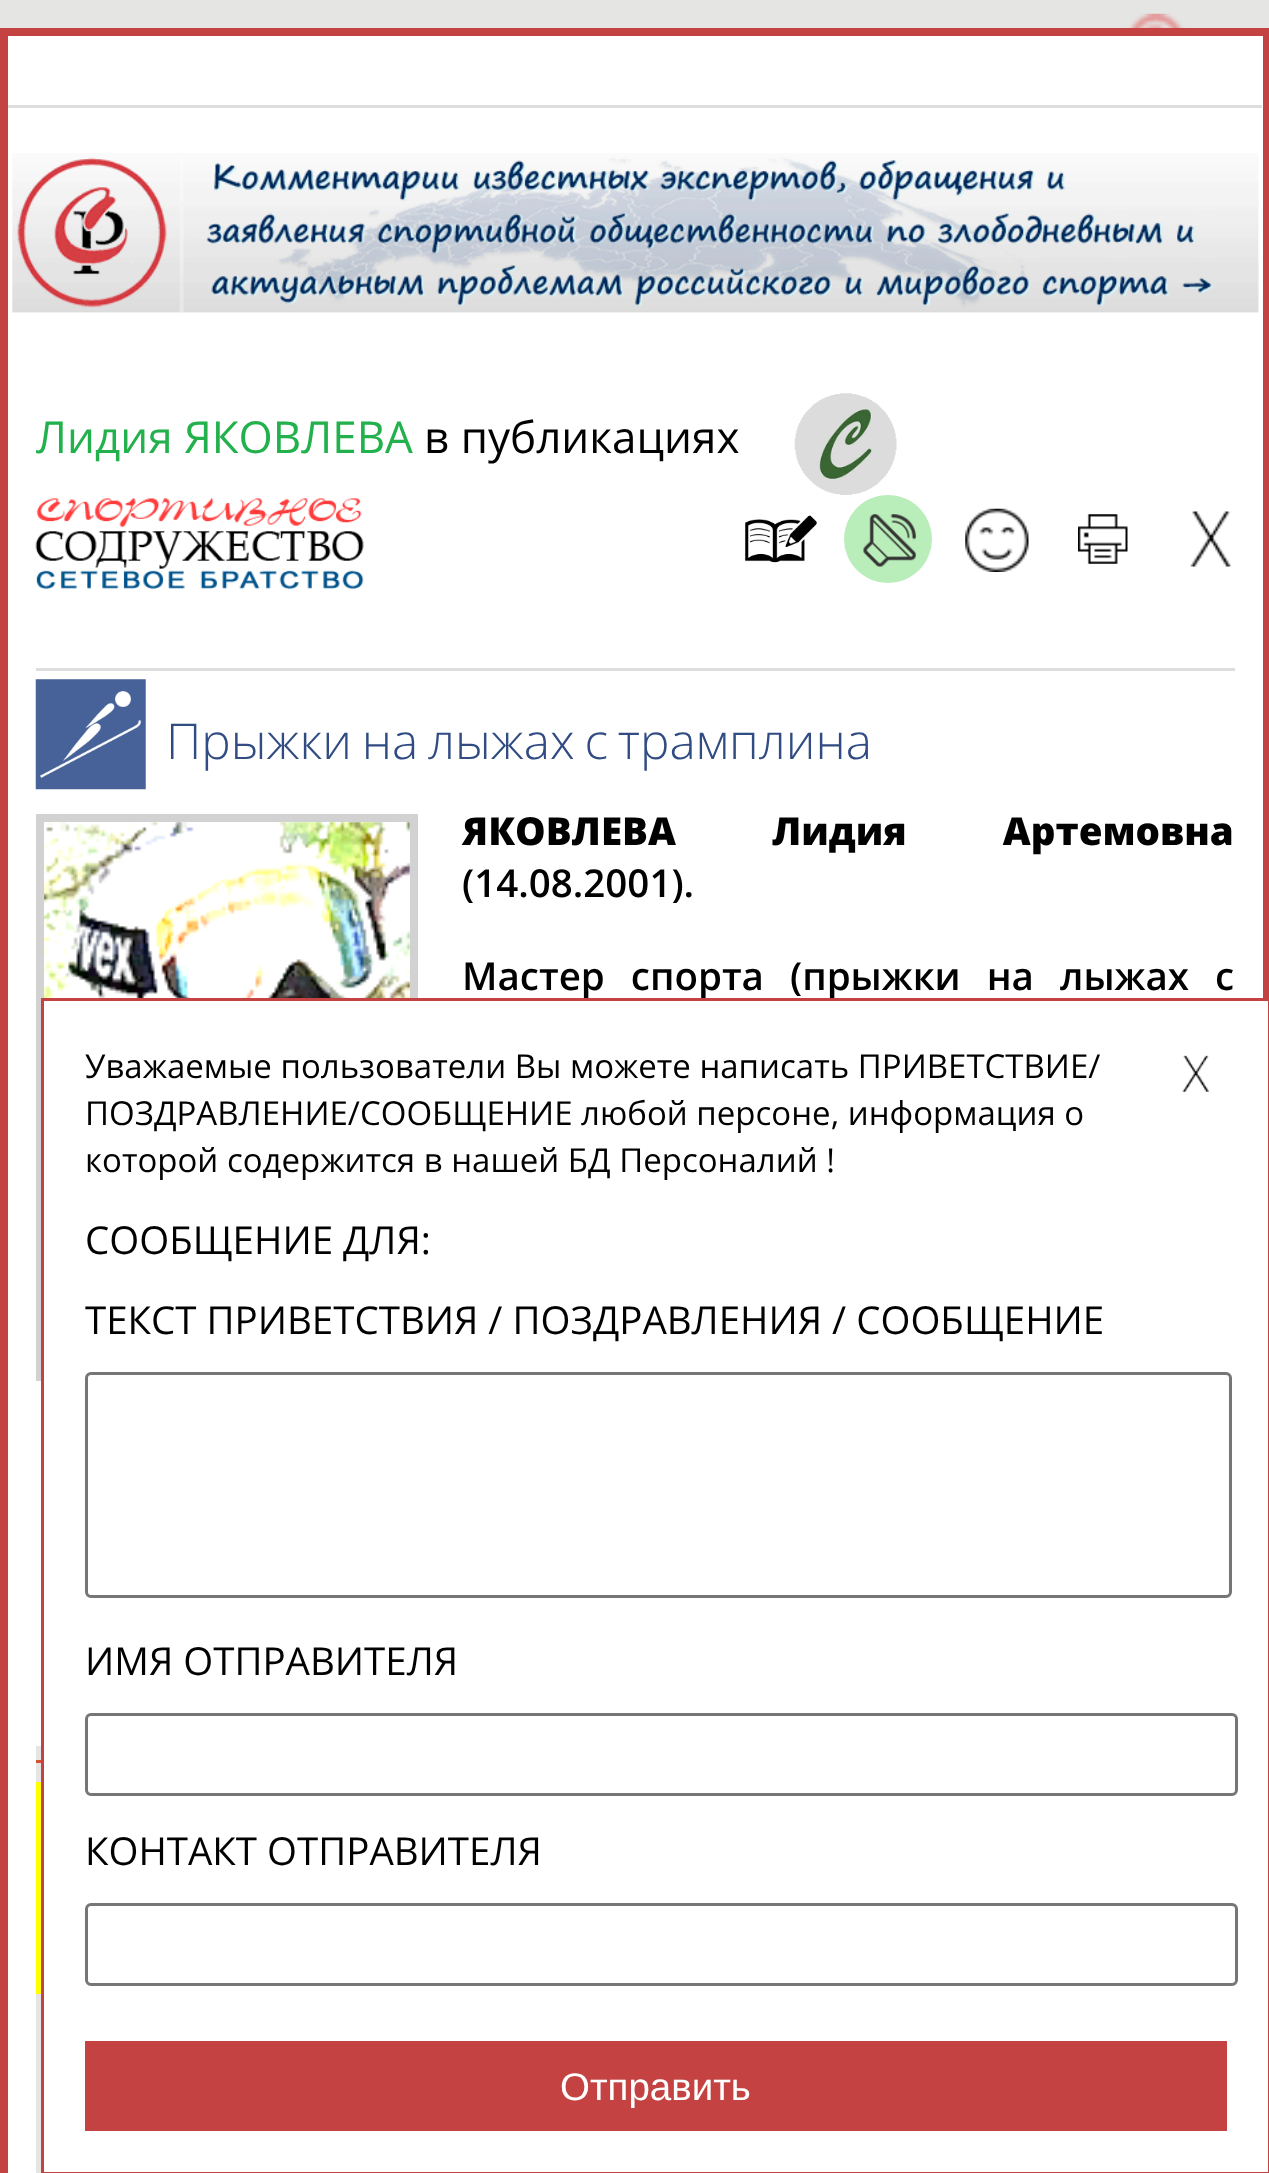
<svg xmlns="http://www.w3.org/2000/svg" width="1269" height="2173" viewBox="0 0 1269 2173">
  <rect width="100%" height="100%" fill="#e5e5e3"/>
  <image x="1127" y="13" width="58" height="15" href="img1.png"/>
  <rect x="4" y="32" width="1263" height="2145" fill="#ffffff" stroke="#c44242" stroke-width="8"/>
  <rect x="8" y="105" width="1254" height="3" fill="#dddddd"/>
  <image x="12" y="153" width="1247" height="160" href="img2.png"/>
  <text x="36" y="453" font-family="Open Sans" font-size="44" fill="#22b14c">Лидия ЯКОВЛЕВА</text>
  <text x="424" y="453" font-family="Open Sans" font-size="44" fill="#010101">в публикациях</text>
  <image x="794" y="393" width="103" height="102" href="img3.png"/>
  <image x="35" y="497" width="329" height="93" href="img4.png"/>
  <image x="745" y="515" width="72" height="48" href="img5.png"/>
  <circle cx="888" cy="539" r="44" fill="#b9edb9"/>
  <image x="863" y="514" width="53" height="53" href="img6.png"/>
  <image x="965" y="508" width="64" height="64" href="img7.png"/>
  <image x="1078" y="514" width="50" height="50" href="img8.png"/>
  <image x="1190" y="511" width="41" height="56" href="img9.png"/>
  <rect x="36" y="668" width="1199" height="3" fill="#dddddd"/>
  <image x="35" y="679" width="111" height="111" href="img10.png"/>
  <text x="166" y="759" word-spacing="-3" font-family="Open Sans" font-size="49.5" font-weight="300" fill="#314c83">Прыжки на лыжах с трамплина</text>
  <rect x="40" y="818" width="374" height="559" fill="none" stroke="#d2d2d2" stroke-width="8"/>
  <image x="44" y="822" width="366" height="176" href="img11.png"/>
  <text x="462" y="845" word-spacing="86" font-family="Open Sans" font-size="38.5" font-weight="800" fill="#010101">ЯКОВЛЕВА Лидия Артемовна</text>
  <text x="462" y="897" font-family="Open Sans" font-size="38.5" font-weight="600" fill="#010101">(14.08.2001).</text>
  <text x="462" y="990" word-spacing="16" font-family="Open Sans" font-size="38.5" font-weight="600" fill="#010101">Мастер спорта (прыжки на лыжах с</text>
  <rect x="36" y="1746" width="5" height="427" fill="#e5e5e3"/>
  <rect x="36" y="1760" width="5" height="3" fill="#d55332"/>
  <rect x="36" y="1782" width="5" height="212" fill="#ffff00"/>
  <rect x="42.5" y="999.5" width="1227" height="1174" fill="#ffffff" stroke="#c44242" stroke-width="3"/>
  <text x="85" y="1078" font-family="Open Sans" font-size="33" fill="#010101">Уважаемые пользователи Вы можете написать ПРИВЕТСТВИЕ/</text>
  <text x="85" y="1125" font-family="Open Sans" font-size="33" fill="#010101">ПОЗДРАВЛЕНИЕ/СООБЩЕНИЕ любой персоне, информация о</text>
  <text x="85" y="1172" font-family="Open Sans" font-size="33" fill="#010101">которой содержится в нашей БД Персоналий !</text>
  <image x="1182" y="1055" width="27" height="37" href="img12.png"/>
  <text x="85" y="1254" font-family="Open Sans" font-size="38.5" fill="#010101">СООБЩЕНИЕ ДЛЯ:</text>
  <text x="85" y="1334" font-family="Open Sans" font-size="38.5" fill="#010101">ТЕКСТ ПРИВЕТСТВИЯ / ПОЗДРАВЛЕНИЯ / СООБЩЕНИЕ</text>
  <rect x="86.5" y="1373.5" width="1144" height="223" rx="4.5" fill="none" stroke="#767676" stroke-width="3"/>
  <text x="85" y="1675" font-family="Open Sans" font-size="38.5" fill="#010101">ИМЯ ОТПРАВИТЕЛЯ</text>
  <rect x="86.5" y="1714.5" width="1150" height="80" rx="4.5" fill="none" stroke="#767676" stroke-width="3"/>
  <text x="85" y="1865" font-family="Open Sans" font-size="38.5" fill="#010101">КОНТАКТ ОТПРАВИТЕЛЯ</text>
  <rect x="86.5" y="1904.5" width="1150" height="80" rx="4.5" fill="none" stroke="#767676" stroke-width="3"/>
  <rect x="85" y="2041" width="1142" height="90" fill="#c44242"/>
  <text x="560" y="2100" font-family="Liberation Sans" font-size="38.5" fill="#ffffff">Отправить</text>
</svg>
